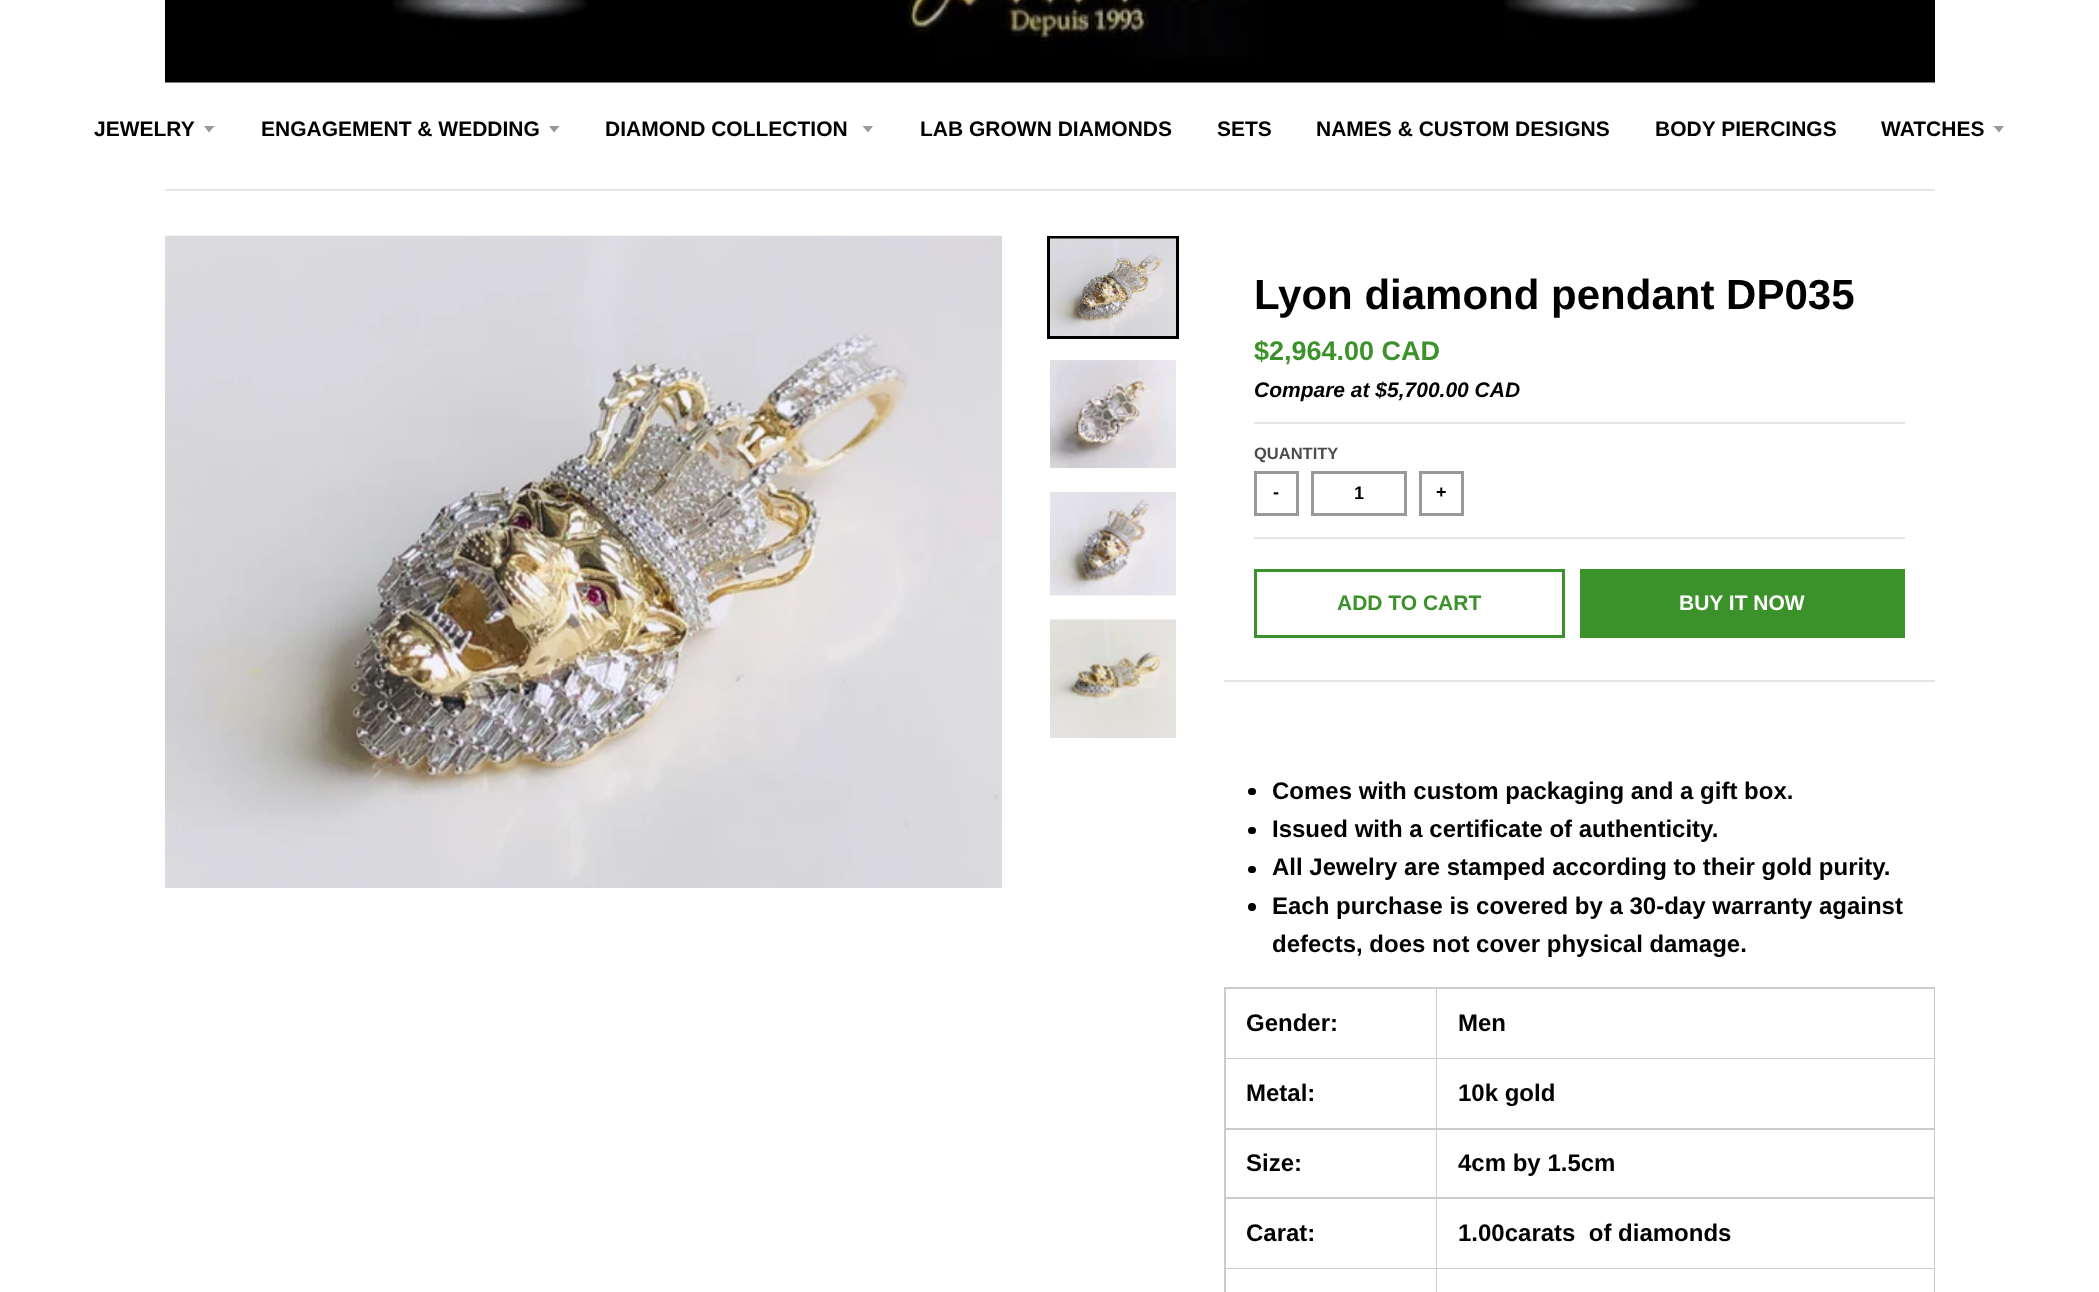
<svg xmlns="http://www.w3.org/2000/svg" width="2099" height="1292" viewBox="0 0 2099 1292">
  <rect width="100%" height="100%" fill="#ffffff"/>
  <image x="165" y="0" width="1770" height="83" href="img1.png"/>
  <text x="94" y="136" font-family="Liberation Sans" font-size="21" font-weight="bold" fill="#000000">JEWELRY</text>
  <path d="M204 126L209 132.5L214.5 126Z" fill="#999999"/>
  <text x="261" y="136" font-family="Liberation Sans" font-size="21" font-weight="bold" fill="#000000">ENGAGEMENT &amp; WEDDING</text>
  <path d="M549 126L554 132.5L559.5 126Z" fill="#999999"/>
  <text x="605" y="136" font-family="Liberation Sans" font-size="21" font-weight="bold" fill="#000000">DIAMOND COLLECTION</text>
  <path d="M862.5 126L868 132.5L873 126Z" fill="#999999"/>
  <text x="920" y="136" font-family="Liberation Sans" font-size="21" font-weight="bold" fill="#000000">LAB GROWN DIAMONDS</text>
  <text x="1217" y="136" font-family="Liberation Sans" font-size="21" font-weight="bold" fill="#000000">SETS</text>
  <text x="1316" y="136" font-family="Liberation Sans" font-size="21" font-weight="bold" fill="#000000">NAMES &amp; CUSTOM DESIGNS</text>
  <text x="1655" y="136" font-family="Liberation Sans" font-size="21" font-weight="bold" fill="#000000">BODY PIERCINGS</text>
  <text x="1881" y="136" font-family="Liberation Sans" font-size="21" font-weight="bold" fill="#000000">WATCHES</text>
  <path d="M1993.5 126L1999 132.5L2004 126Z" fill="#999999"/>
  <rect x="165" y="189" width="1770" height="2" fill="#e5e5e5"/>
  <image x="165" y="235" width="837" height="653" href="img2.png"/>
  <rect x="1048.5" y="237.5" width="129" height="100" fill="none" stroke="#000000" stroke-width="3"/>
  <image x="1050" y="238" width="126" height="98" href="img3.png"/>
  <image x="1050" y="360" width="126" height="108" href="img4.png"/>
  <image x="1050" y="492" width="126" height="104" href="img5.png"/>
  <image x="1050" y="619" width="126" height="119" href="img6.png"/>
  <rect x="1224" y="680" width="711" height="2" fill="#e5e5e5"/>
  <text x="1254" y="309" font-family="Liberation Sans" font-size="42" font-weight="bold" fill="#000000">Lyon diamond pendant DP035</text>
  <rect x="1254" y="422" width="651" height="2" fill="#e5e5e5"/>
  <text x="1254" y="360" font-family="Liberation Sans" font-size="27" font-weight="bold" fill="#3c922a">$2,964.00 CAD</text>
  <text x="1254" y="397" font-family="Liberation Sans" font-size="21" font-weight="bold" font-style="italic" fill="#000000">Compare at $5,700.00 CAD</text>
  <rect x="1254" y="537" width="651" height="2" fill="#e5e5e5"/>
  <text x="1254" y="459" font-family="Liberation Sans" font-size="16.5" font-weight="bold" fill="#4c4c4c">QUANTITY</text>
  <rect x="1255.5" y="472.5" width="42" height="42" fill="none" stroke="#999999" stroke-width="3"/>
  <text x="1273" y="498" font-family="Liberation Sans" font-size="18" font-weight="bold" fill="#000000">-</text>
  <rect x="1312.5" y="472.5" width="93" height="42" fill="none" stroke="#999999" stroke-width="3"/>
  <text x="1354" y="499" font-family="Liberation Sans" font-size="18" font-weight="bold" fill="#000000">1</text>
  <rect x="1420.5" y="472.5" width="42" height="42" fill="none" stroke="#999999" stroke-width="3"/>
  <text x="1436" y="498" font-family="Liberation Sans" font-size="18" font-weight="bold" fill="#000000">+</text>
  <rect x="1255.5" y="570.5" width="308" height="66" fill="none" stroke="#3c922a" stroke-width="3"/>
  <text x="1337" y="610" font-family="Liberation Sans" font-size="21" font-weight="bold" fill="#3c922a">ADD TO CART</text>
  <rect x="1580" y="569" width="325" height="69" fill="#3c922a"/>
  <text x="1679" y="610" font-family="Liberation Sans" font-size="21" font-weight="bold" fill="#ffffff">BUY IT NOW</text>
  <rect x="1248" y="788" width="8" height="7" rx="3.5" fill="#000000"/>
  <text x="1272" y="799" font-family="Liberation Sans" font-size="24" font-weight="bold" fill="#000000">Comes with custom packaging and a gift box.</text>
  <rect x="1248" y="827" width="8" height="7" rx="3.5" fill="#000000"/>
  <text x="1272" y="837" font-family="Liberation Sans" font-size="24" font-weight="bold" fill="#000000">Issued with a certificate of authenticity.</text>
  <rect x="1248" y="866" width="8" height="7" rx="3.5" fill="#000000"/>
  <text x="1272" y="875" font-family="Liberation Sans" font-size="24" font-weight="bold" fill="#000000">All Jewelry are stamped according to their gold purity.</text>
  <circle cx="1252" cy="907" r="4" fill="#000000"/>
  <text x="1272" y="914" font-family="Liberation Sans" font-size="24" font-weight="bold" fill="#000000">Each purchase is covered by a 30-day warranty against</text>
  <text x="1272" y="952" font-family="Liberation Sans" font-size="24" font-weight="bold" fill="#000000">defects, does not cover physical damage.</text>
  <rect x="1224" y="987" width="711" height="305" fill="#cccccc"/>
  <rect x="1226" y="989" width="210" height="69" fill="#ffffff"/>
  <text x="1246" y="1031" font-family="Liberation Sans" font-size="24" font-weight="bold" fill="#000000">Gender:</text>
  <rect x="1437" y="989" width="497" height="69" fill="#ffffff"/>
  <text x="1458" y="1031" font-family="Liberation Sans" font-size="24" font-weight="bold" fill="#000000">Men</text>
  <rect x="1226" y="1059" width="210" height="69" fill="#ffffff"/>
  <text x="1246" y="1101" font-family="Liberation Sans" font-size="24" font-weight="bold" fill="#000000">Metal:</text>
  <rect x="1437" y="1059" width="497" height="69" fill="#ffffff"/>
  <text x="1458" y="1101" font-family="Liberation Sans" font-size="24" font-weight="bold" fill="#000000">10k gold</text>
  <rect x="1226" y="1130" width="210" height="67" fill="#ffffff"/>
  <text x="1246" y="1171" font-family="Liberation Sans" font-size="24" font-weight="bold" fill="#000000">Size:</text>
  <rect x="1437" y="1130" width="497" height="67" fill="#ffffff"/>
  <text x="1458" y="1171" font-family="Liberation Sans" font-size="24" font-weight="bold" fill="#000000">4cm by 1.5cm</text>
  <rect x="1226" y="1199" width="210" height="69" fill="#ffffff"/>
  <text x="1246" y="1241" font-family="Liberation Sans" font-size="24" font-weight="bold" fill="#000000">Carat:</text>
  <rect x="1437" y="1199" width="497" height="69" fill="#ffffff"/>
  <text x="1458" y="1241" font-family="Liberation Sans" font-size="24" font-weight="bold" fill="#000000" xml:space="preserve">1.00carats  of diamonds</text>
  <rect x="1226" y="1269" width="210" height="23" fill="#ffffff"/>
  <rect x="1437" y="1269" width="497" height="23" fill="#ffffff"/>
</svg>
